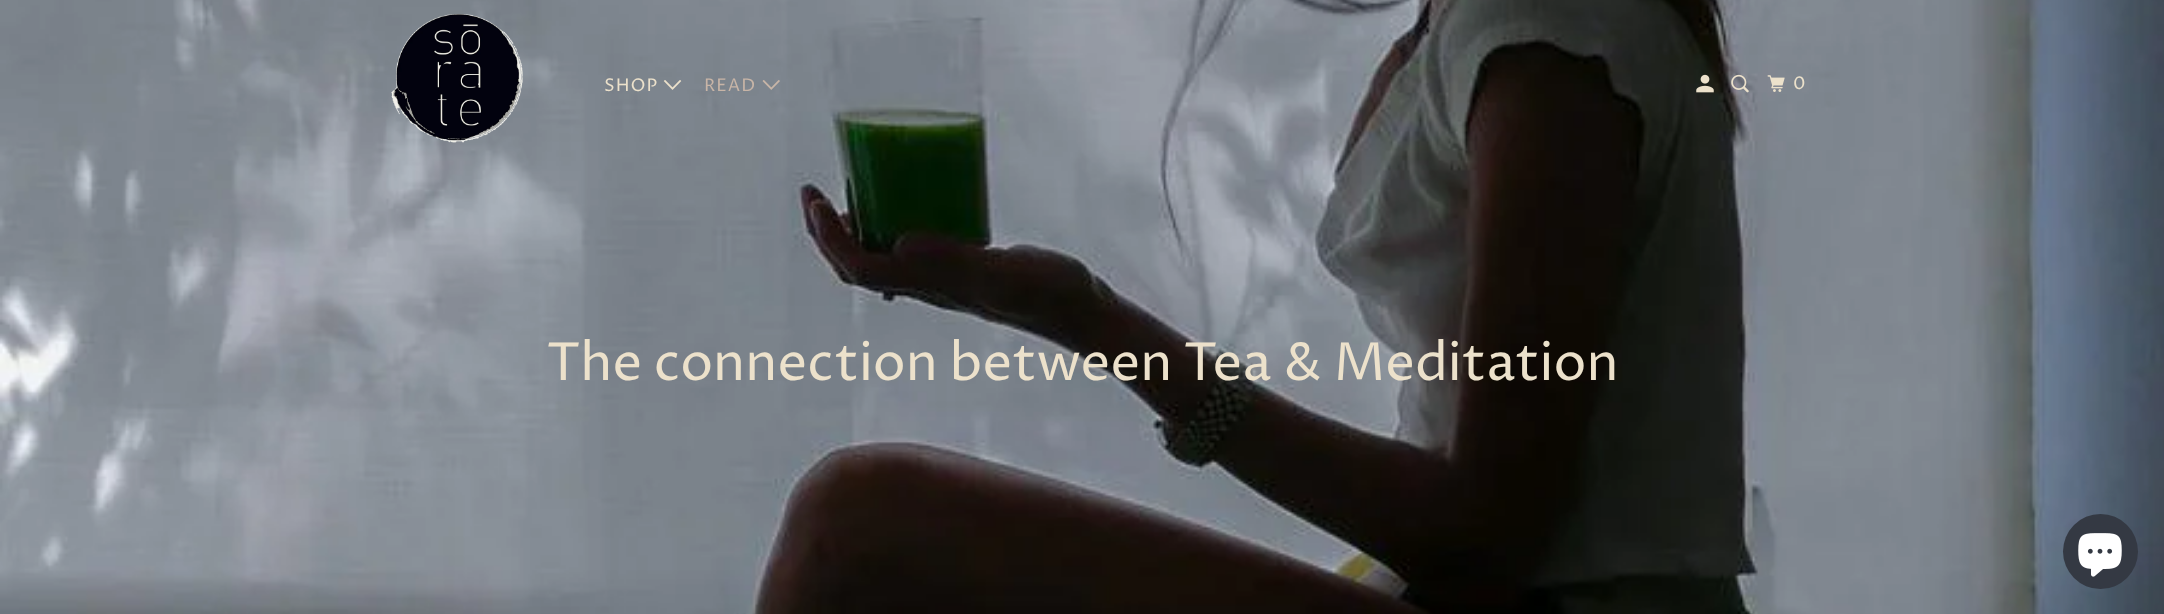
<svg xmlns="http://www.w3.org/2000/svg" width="2164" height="614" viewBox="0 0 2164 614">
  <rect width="100%" height="100%" fill="#ffffff"/>
  <image x="0" y="0" width="2164" height="614" href="img7.png"/>
  <image x="391" y="14" width="132" height="129" href="img1.png"/>
  <text x="604" y="91" font-family="Proza Libre" font-size="17.5" letter-spacing="1" fill="#ece1cb">SHOP</text>
  <image x="663" y="80" width="19" height="10" href="img2.png"/>
  <text x="704" y="91" font-family="Proza Libre" font-size="17.5" letter-spacing="1" fill="#c8b5a7">READ</text>
  <image x="762" y="80" width="18" height="10" href="img3.png"/>
  <image x="1696" y="74" width="18" height="19" href="img4.png"/>
  <image x="1731" y="74" width="18" height="19" href="img5.png"/>
  <image x="1767" y="75" width="18" height="17" href="img6.png"/>
  <text x="1793" y="89" font-family="Proza Libre" font-size="17.5" letter-spacing="1" fill="#ece1cb">0</text>
  <text x="547" y="380" font-family="Proza Libre" font-size="52.5" fill="#ece1cb">The connection between Tea &amp; Meditation</text>
  <circle cx="2100.5" cy="551.5" r="37.5" fill="#343943"/>
  <image x="2078" y="533" width="44" height="44" href="img8.png"/>
</svg>
